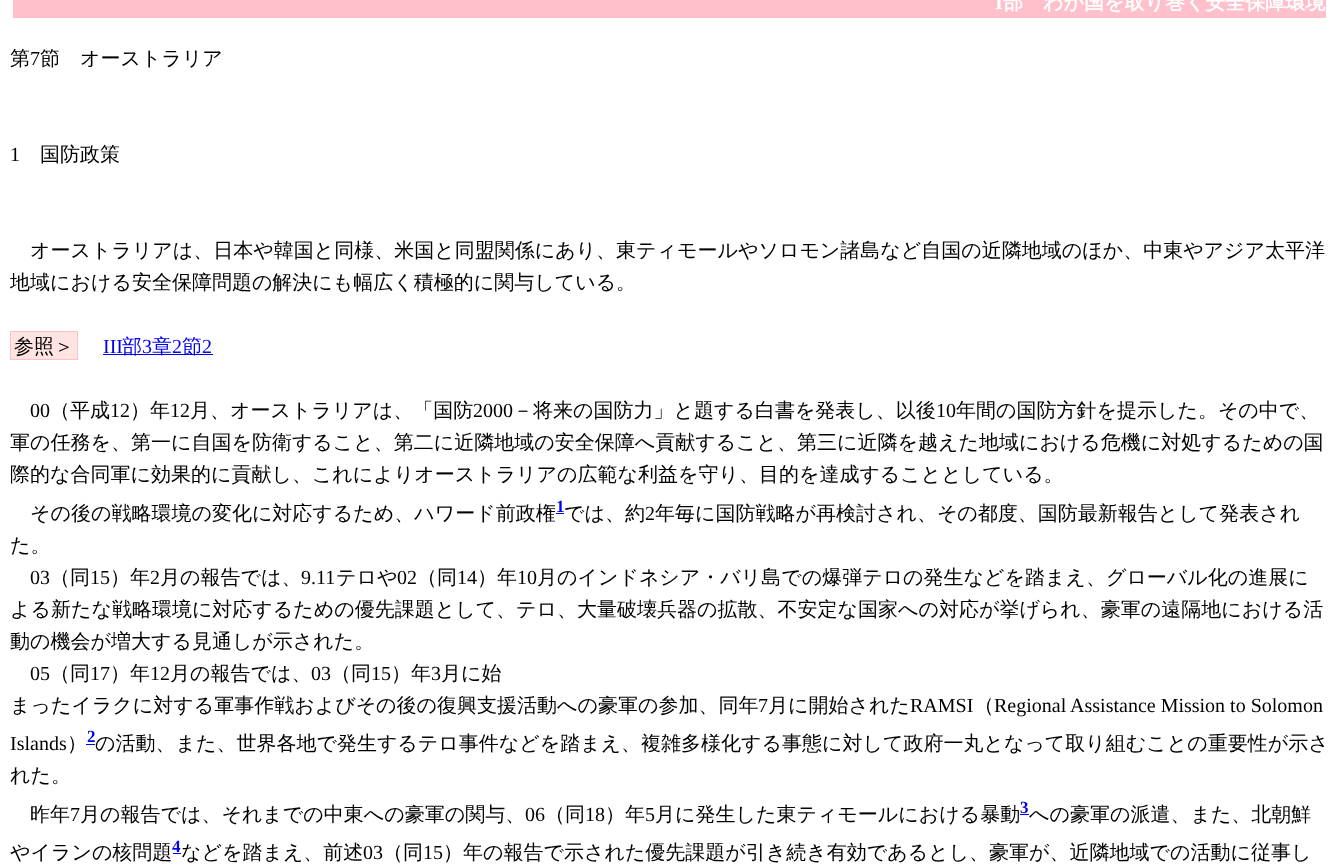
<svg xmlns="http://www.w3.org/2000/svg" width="1338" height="868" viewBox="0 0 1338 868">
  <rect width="100%" height="100%" fill="#ffffff"/>
  <rect x="13" y="0" width="1313" height="18" fill="#ffc0cb"/>
  <text x="995" y="9" font-family="Liberation Serif" font-size="20" font-weight="bold" fill="#ffffff">I</text>
  <text x="1003" y="9" font-family="WenQuanYi Zen Hei" font-size="20" font-weight="bold" fill="#ffffff">部　わが国を取り巻く安全保障環境</text>
  <text x="10" y="65" font-family="WenQuanYi Zen Hei" font-size="20" font-weight="500" fill="#000000">第</text>
  <text x="30" y="65" font-family="Liberation Serif" font-size="20" fill="#000000">7</text>
  <text x="40" y="65" font-family="WenQuanYi Zen Hei" font-size="20" font-weight="500" fill="#000000">節　オーストラリア</text>
  <text x="10" y="161" font-family="Liberation Serif" font-size="20" fill="#000000">1</text>
  <text x="40" y="161" font-family="WenQuanYi Zen Hei" font-size="20" font-weight="500" fill="#000000">国防政策</text>
  <text x="30" y="257" font-family="WenQuanYi Zen Hei" font-size="20" font-weight="500" fill="#000000">オーストラリアは、日本や韓国と同様、米国と同盟関係にあり、東ティモールやソロモン諸島など自国の近隣地域のほか、中東やアジア太平洋</text>
  <text x="10" y="289" font-family="WenQuanYi Zen Hei" font-size="20" font-weight="500" fill="#000000">地域における安全保障問題の解決にも幅広く積極的に関与している。</text>
  <rect x="10.5" y="331.5" width="67" height="28" fill="#ffe4e1" stroke="#ffc0cb"/>
  <text x="14" y="353" font-family="WenQuanYi Zen Hei" font-size="20" font-weight="500" fill="#000000">参照＞</text>
  <text x="103" y="353" font-family="Liberation Serif" font-size="20" fill="#0000ee">III</text>
  <rect x="103" y="354" width="110" height="1" fill="#0000ee"/>
  <text x="122" y="353" font-family="WenQuanYi Zen Hei" font-size="20" font-weight="500" fill="#0000ee">部</text>
  <text x="142" y="353" font-family="Liberation Serif" font-size="20" fill="#0000ee">3</text>
  <text x="152" y="353" font-family="WenQuanYi Zen Hei" font-size="20" font-weight="500" fill="#0000ee">章</text>
  <text x="172" y="353" font-family="Liberation Serif" font-size="20" fill="#0000ee">2</text>
  <text x="182" y="353" font-family="WenQuanYi Zen Hei" font-size="20" font-weight="500" fill="#0000ee">節</text>
  <text x="202" y="353" font-family="Liberation Serif" font-size="20" fill="#0000ee">2</text>
  <text x="30" y="417" font-family="Liberation Serif" font-size="20" fill="#000000">00</text>
  <text x="50" y="417" font-family="WenQuanYi Zen Hei" font-size="20" font-weight="500" fill="#000000">（平成</text>
  <text x="110" y="417" font-family="Liberation Serif" font-size="20" fill="#000000">12</text>
  <text x="130" y="417" font-family="WenQuanYi Zen Hei" font-size="20" font-weight="500" fill="#000000">）年</text>
  <text x="170" y="417" font-family="Liberation Serif" font-size="20" fill="#000000">12</text>
  <text x="190" y="417" font-family="WenQuanYi Zen Hei" font-size="20" font-weight="500" fill="#000000">月、オーストラリアは、「国防</text>
  <text x="473" y="417" font-family="Liberation Serif" font-size="20" fill="#000000">2000</text>
  <text x="513" y="417" font-family="WenQuanYi Zen Hei" font-size="20" font-weight="500" fill="#000000">－将来の国防力」と題する白書を発表し、以後</text>
  <text x="936" y="417" font-family="Liberation Serif" font-size="20" fill="#000000">10</text>
  <text x="956" y="417" font-family="WenQuanYi Zen Hei" font-size="20" font-weight="500" fill="#000000">年間の国防方針を提示した。その中で、</text>
  <text x="10" y="449" font-family="WenQuanYi Zen Hei" font-size="20" font-weight="500" fill="#000000">軍の任務を、第一に自国を防衛すること、第二に近隣地域の安全保障へ貢献すること、第三に近隣を越えた地域における危機に対処するための国</text>
  <text x="10" y="481" font-family="WenQuanYi Zen Hei" font-size="20" font-weight="500" fill="#000000">際的な合同軍に効果的に貢献し、これによりオーストラリアの広範な利益を守り、目的を達成することとしている。</text>
  <text x="30" y="520" font-family="WenQuanYi Zen Hei" font-size="20" font-weight="500" fill="#000000">その後の戦略環境の変化に対応するため、ハワード前政権</text>
  <text x="556" y="512" font-family="Liberation Serif" font-size="17" font-weight="bold" fill="#0000ee">1</text>
  <rect x="556" y="513" width="8" height="1" fill="#0000ee"/>
  <text x="564" y="520" font-family="WenQuanYi Zen Hei" font-size="20" font-weight="500" fill="#000000">では、約</text>
  <text x="645" y="520" font-family="Liberation Serif" font-size="20" fill="#000000">2</text>
  <text x="655" y="520" font-family="WenQuanYi Zen Hei" font-size="20" font-weight="500" fill="#000000">年毎に国防戦略が再検討され、その都度、国防最新報告として発表され</text>
  <text x="10" y="552" font-family="WenQuanYi Zen Hei" font-size="20" font-weight="500" fill="#000000">た。</text>
  <text x="30" y="584" font-family="Liberation Serif" font-size="20" fill="#000000">03</text>
  <text x="50" y="584" font-family="WenQuanYi Zen Hei" font-size="20" font-weight="500" fill="#000000">（同</text>
  <text x="90" y="584" font-family="Liberation Serif" font-size="20" fill="#000000">15</text>
  <text x="110" y="584" font-family="WenQuanYi Zen Hei" font-size="20" font-weight="500" fill="#000000">）年</text>
  <text x="150" y="584" font-family="Liberation Serif" font-size="20" fill="#000000">2</text>
  <text x="160" y="584" font-family="WenQuanYi Zen Hei" font-size="20" font-weight="500" fill="#000000">月の報告では、</text>
  <text x="301" y="584" font-family="Liberation Serif" font-size="20" fill="#000000">9.11</text>
  <text x="336" y="584" font-family="WenQuanYi Zen Hei" font-size="20" font-weight="500" fill="#000000">テロや</text>
  <text x="397" y="584" font-family="Liberation Serif" font-size="20" fill="#000000">02</text>
  <text x="417" y="584" font-family="WenQuanYi Zen Hei" font-size="20" font-weight="500" fill="#000000">（同</text>
  <text x="457" y="584" font-family="Liberation Serif" font-size="20" fill="#000000">14</text>
  <text x="477" y="584" font-family="WenQuanYi Zen Hei" font-size="20" font-weight="500" fill="#000000">）年</text>
  <text x="517" y="584" font-family="Liberation Serif" font-size="20" fill="#000000">10</text>
  <text x="537" y="584" font-family="WenQuanYi Zen Hei" font-size="20" font-weight="500" fill="#000000">月のインドネシア・バリ島での爆弾テロの発生などを踏まえ、グローバル化の進展に</text>
  <text x="10" y="616" font-family="WenQuanYi Zen Hei" font-size="20" font-weight="500" fill="#000000">よる新たな戦略環境に対応するための優先課題として、テロ、大量破壊兵器の拡散、不安定な国家への対応が挙げられ、豪軍の遠隔地における活</text>
  <text x="10" y="648" font-family="WenQuanYi Zen Hei" font-size="20" font-weight="500" fill="#000000">動の機会が増大する見通しが示された。</text>
  <text x="30" y="680" font-family="Liberation Serif" font-size="20" fill="#000000">05</text>
  <text x="50" y="680" font-family="WenQuanYi Zen Hei" font-size="20" font-weight="500" fill="#000000">（同</text>
  <text x="90" y="680" font-family="Liberation Serif" font-size="20" fill="#000000">17</text>
  <text x="110" y="680" font-family="WenQuanYi Zen Hei" font-size="20" font-weight="500" fill="#000000">）年</text>
  <text x="150" y="680" font-family="Liberation Serif" font-size="20" fill="#000000">12</text>
  <text x="170" y="680" font-family="WenQuanYi Zen Hei" font-size="20" font-weight="500" fill="#000000">月の報告では、</text>
  <text x="311" y="680" font-family="Liberation Serif" font-size="20" fill="#000000">03</text>
  <text x="331" y="680" font-family="WenQuanYi Zen Hei" font-size="20" font-weight="500" fill="#000000">（同</text>
  <text x="371" y="680" font-family="Liberation Serif" font-size="20" fill="#000000">15</text>
  <text x="391" y="680" font-family="WenQuanYi Zen Hei" font-size="20" font-weight="500" fill="#000000">）年</text>
  <text x="431" y="680" font-family="Liberation Serif" font-size="20" fill="#000000">3</text>
  <text x="441" y="680" font-family="WenQuanYi Zen Hei" font-size="20" font-weight="500" fill="#000000">月に始</text>
  <text x="10" y="712" font-family="WenQuanYi Zen Hei" font-size="20" font-weight="500" fill="#000000">まったイラクに対する軍事作戦およびその後の復興支援活動への豪軍の参加、同年</text>
  <text x="758" y="712" font-family="Liberation Serif" font-size="20" fill="#000000">7</text>
  <text x="768" y="712" font-family="WenQuanYi Zen Hei" font-size="20" font-weight="500" fill="#000000">月に開始された</text>
  <text x="910" y="712" font-family="Liberation Serif" font-size="20" fill="#000000">RAMSI</text>
  <text x="974" y="712" font-family="WenQuanYi Zen Hei" font-size="20" font-weight="500" fill="#000000">（</text>
  <text x="994" y="712" font-family="Liberation Serif" font-size="20" fill="#000000">Regional Assistance Mission to Solomon</text>
  <text x="10" y="750" font-family="Liberation Serif" font-size="20" fill="#000000">Islands</text>
  <text x="67" y="750" font-family="WenQuanYi Zen Hei" font-size="20" font-weight="500" fill="#000000">）</text>
  <text x="87" y="742" font-family="Liberation Serif" font-size="17" font-weight="bold" fill="#0000ee">2</text>
  <rect x="86" y="744" width="9" height="1" fill="#0000ee"/>
  <text x="95" y="750" font-family="WenQuanYi Zen Hei" font-size="20" font-weight="500" fill="#000000">の活動、また、世界各地で発生するテロ事件などを踏まえ、複雑多様化する事態に対して政府一丸となって取り組むことの重要性が示さ</text>
  <text x="10" y="782" font-family="WenQuanYi Zen Hei" font-size="20" font-weight="500" fill="#000000">れた。</text>
  <text x="30" y="821" font-family="WenQuanYi Zen Hei" font-size="20" font-weight="500" fill="#000000">昨年</text>
  <text x="70" y="821" font-family="Liberation Serif" font-size="20" fill="#000000">7</text>
  <text x="80" y="821" font-family="WenQuanYi Zen Hei" font-size="20" font-weight="500" fill="#000000">月の報告では、それまでの中東への豪軍の関与、</text>
  <text x="525" y="821" font-family="Liberation Serif" font-size="20" fill="#000000">06</text>
  <text x="545" y="821" font-family="WenQuanYi Zen Hei" font-size="20" font-weight="500" fill="#000000">（同</text>
  <text x="585" y="821" font-family="Liberation Serif" font-size="20" fill="#000000">18</text>
  <text x="605" y="821" font-family="WenQuanYi Zen Hei" font-size="20" font-weight="500" fill="#000000">）年</text>
  <text x="645" y="821" font-family="Liberation Serif" font-size="20" fill="#000000">5</text>
  <text x="655" y="821" font-family="WenQuanYi Zen Hei" font-size="20" font-weight="500" fill="#000000">月に発生した東ティモールにおける暴動</text>
  <text x="1020" y="813" font-family="Liberation Serif" font-size="17" font-weight="bold" fill="#0000ee">3</text>
  <rect x="1020" y="814" width="9" height="1" fill="#0000ee"/>
  <text x="1029" y="821" font-family="WenQuanYi Zen Hei" font-size="20" font-weight="500" fill="#000000">への豪軍の派遣、また、北朝鮮</text>
  <text x="10" y="859" font-family="WenQuanYi Zen Hei" font-size="20" font-weight="500" fill="#000000">やイランの核問題</text>
  <text x="172" y="852" font-family="Liberation Serif" font-size="17" font-weight="bold" fill="#0000ee">4</text>
  <rect x="173" y="853" width="8" height="1" fill="#0000ee"/>
  <text x="181" y="859" font-family="WenQuanYi Zen Hei" font-size="20" font-weight="500" fill="#000000">などを踏まえ、前述</text>
  <text x="363" y="859" font-family="Liberation Serif" font-size="20" fill="#000000">03</text>
  <text x="383" y="859" font-family="WenQuanYi Zen Hei" font-size="20" font-weight="500" fill="#000000">（同</text>
  <text x="423" y="859" font-family="Liberation Serif" font-size="20" fill="#000000">15</text>
  <text x="443" y="859" font-family="WenQuanYi Zen Hei" font-size="20" font-weight="500" fill="#000000">）年の報告で示された優先課題が引き続き有効であるとし、豪軍が、近隣地域での活動に従事し</text>
</svg>
